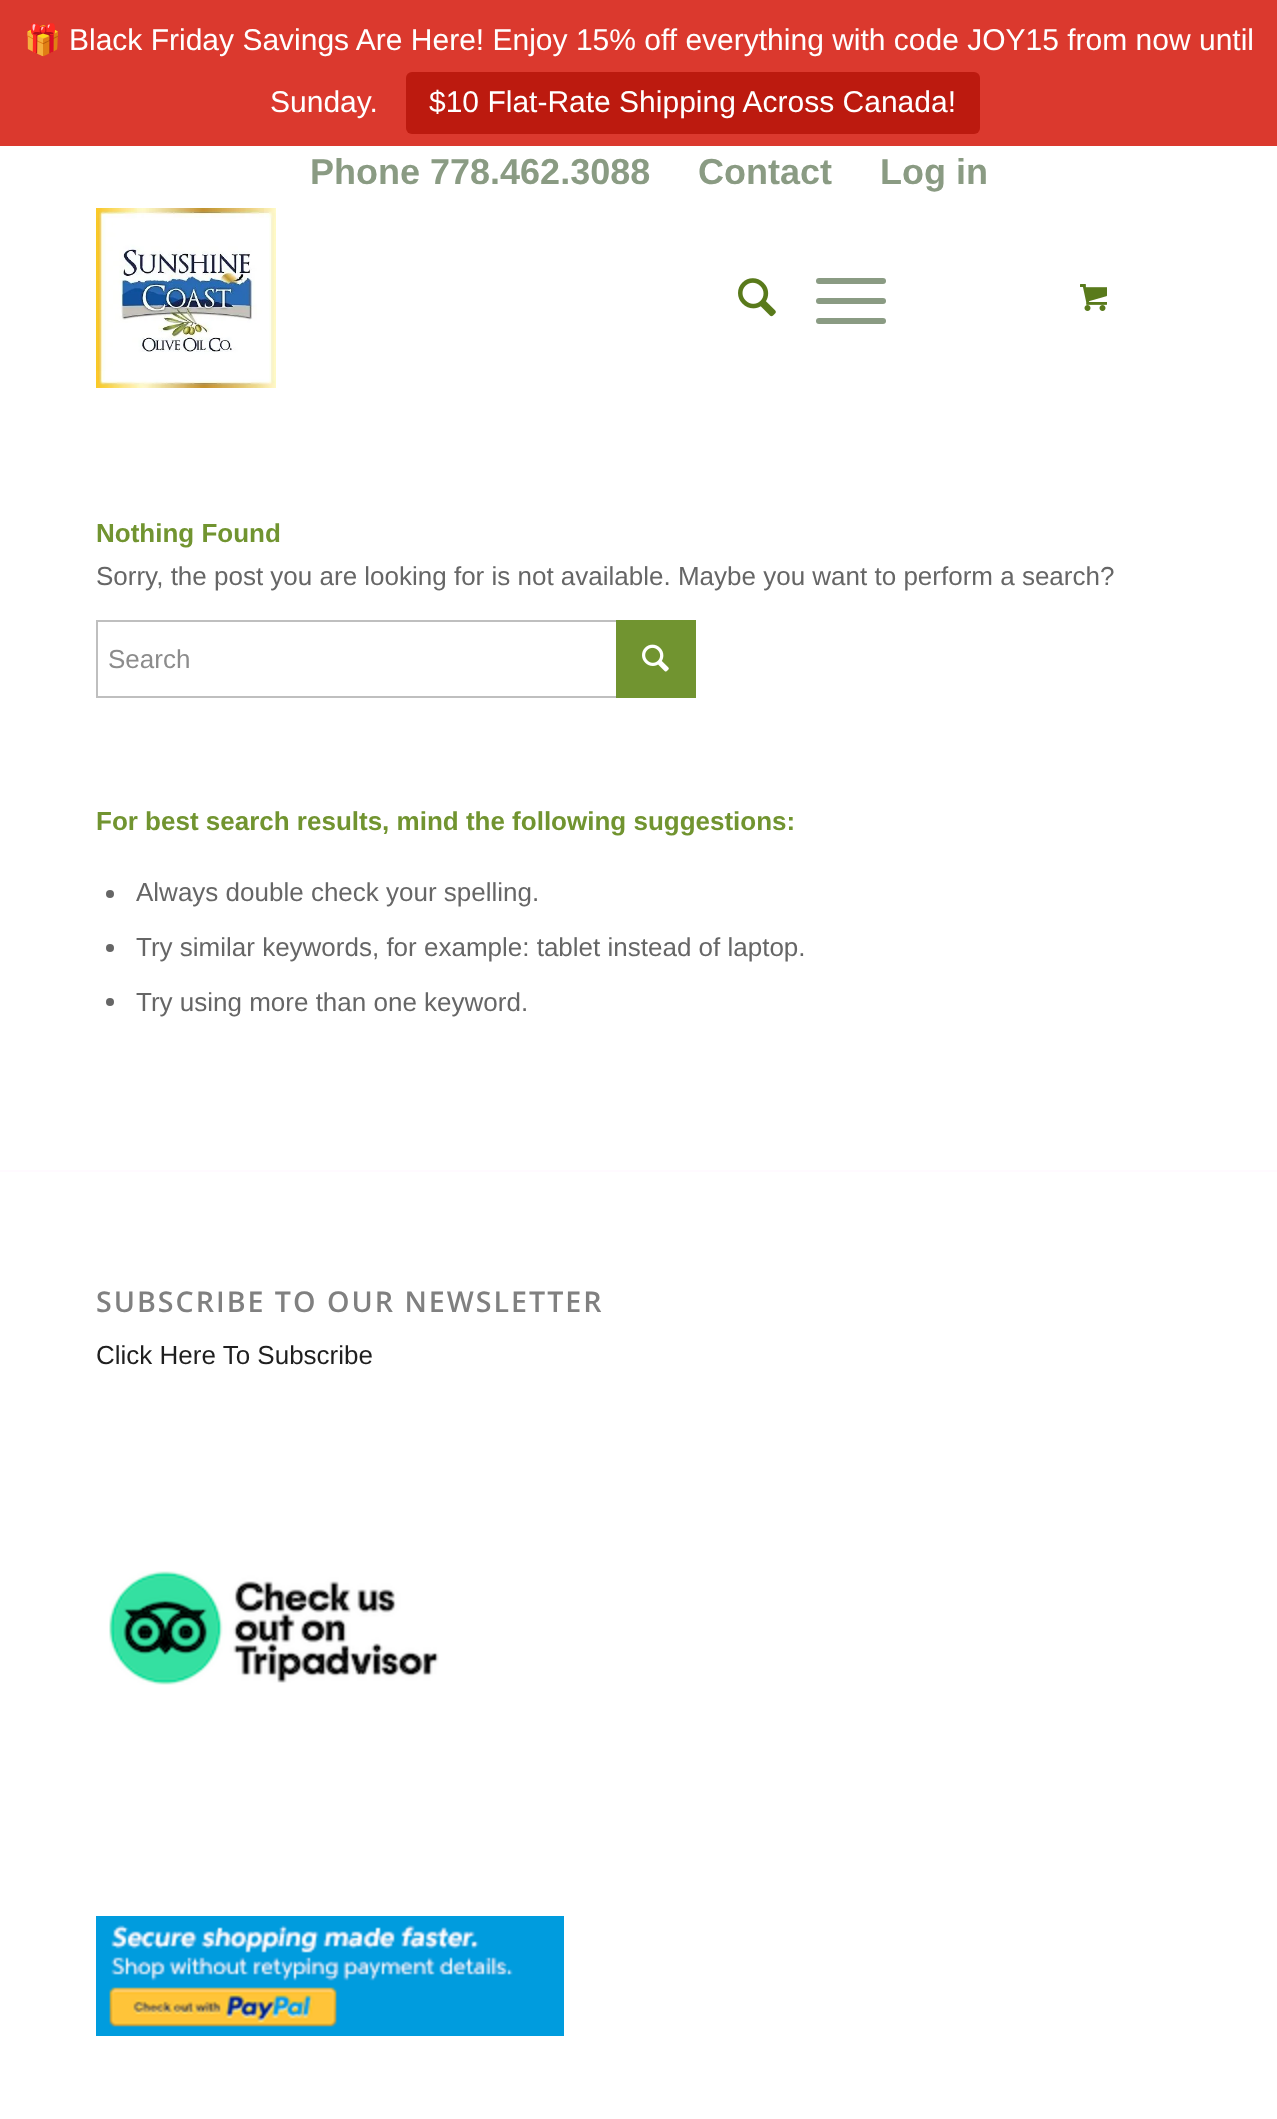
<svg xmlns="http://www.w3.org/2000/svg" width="1277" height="2119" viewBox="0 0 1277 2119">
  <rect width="100%" height="100%" fill="#ffffff"/>
  <rect x="0" y="0" width="1277" height="146" fill="#db392e"/>
  <text x="24" y="50" font-family="Noto Color Emoji" font-size="30" fill="#ffffff">🎁</text>
  <text x="69" y="50" font-family="Liberation Sans" font-size="30" fill="#ffffff">Black Friday Savings Are Here! Enjoy 15% off everything with code JOY15 from now until</text>
  <text x="270" y="112" font-family="Liberation Sans" font-size="30" fill="#ffffff">Sunday.</text>
  <rect x="406" y="72" width="574" height="62" rx="6" fill="#bc1a0f"/>
  <text x="429" y="112" font-family="Liberation Sans" font-size="30" fill="#ffffff">$10 Flat-Rate Shipping Across Canada!</text>
  <text x="310" y="184" font-family="Liberation Sans" font-size="36" font-weight="bold" fill="#8a9b83">Phone 778.462.3088</text>
  <text x="698" y="184" font-family="Liberation Sans" font-size="36" font-weight="bold" fill="#8a9b83">Contact</text>
  <text x="880" y="184" font-family="Liberation Sans" font-size="36" font-weight="bold" fill="#8a9b83">Log in</text>
  <image x="96" y="208" width="180" height="180" href="img1.png"/>
  <image x="738" y="278" width="38" height="39" href="img2.png"/>
  <rect x="816" y="298" width="70" height="6" rx="3" fill="#8a9b83"/>
  <rect x="816" y="278" width="70" height="6" rx="3" fill="#8a9b83"/>
  <rect x="816" y="318" width="70" height="6" rx="3" fill="#8a9b83"/>
  <image x="1080" y="284" width="27" height="27" href="img3.png"/>
  <text x="96" y="542" font-family="Liberation Sans" font-size="26" font-weight="bold" fill="#719430">Nothing Found</text>
  <text x="96" y="585" font-family="Liberation Sans" font-size="26" fill="#666666">Sorry, the post you are looking for is not available. Maybe you want to perform a search?</text>
  <rect x="97" y="621" width="598" height="76" fill="none" stroke="#bfbfbf" stroke-width="2"/>
  <text x="108" y="668" font-family="Liberation Sans" font-size="26" fill="#8c8c8c">Search</text>
  <rect x="616" y="620" width="80" height="78" fill="#719430"/>
  <image x="642" y="644" width="27" height="28" href="img4.png"/>
  <text x="96" y="830" font-family="Liberation Sans" font-size="26" font-weight="bold" fill="#719430">For best search results, mind the following suggestions:</text>
  <circle cx="110" cy="894" r="4" fill="#666666"/>
  <text x="136" y="901" font-family="Liberation Sans" font-size="26" fill="#666666">Always double check your spelling.</text>
  <circle cx="110" cy="948" r="4" fill="#666666"/>
  <text x="136" y="956" font-family="Liberation Sans" font-size="26" fill="#666666">Try similar keywords, for example: tablet instead of laptop.</text>
  <circle cx="110" cy="1002" r="4" fill="#666666"/>
  <text x="136" y="1011" font-family="Liberation Sans" font-size="26" fill="#666666">Try using more than one keyword.</text>
  <rect x="0" y="1170" width="1277" height="2" fill="#fffaff"/>
  <text x="96" y="1312" font-family="Open Sans" font-size="28.6" font-weight="600" letter-spacing="2" fill="#808080">SUBSCRIBE TO OUR NEWSLETTER</text>
  <text x="96" y="1364" font-family="Liberation Sans" font-size="26" fill="#1f1f1f">Click Here To Subscribe</text>
  <image x="109" y="1571" width="330" height="114" href="img5.png"/>
  <image x="96" y="1916" width="468" height="120" href="img6.png"/>
</svg>
